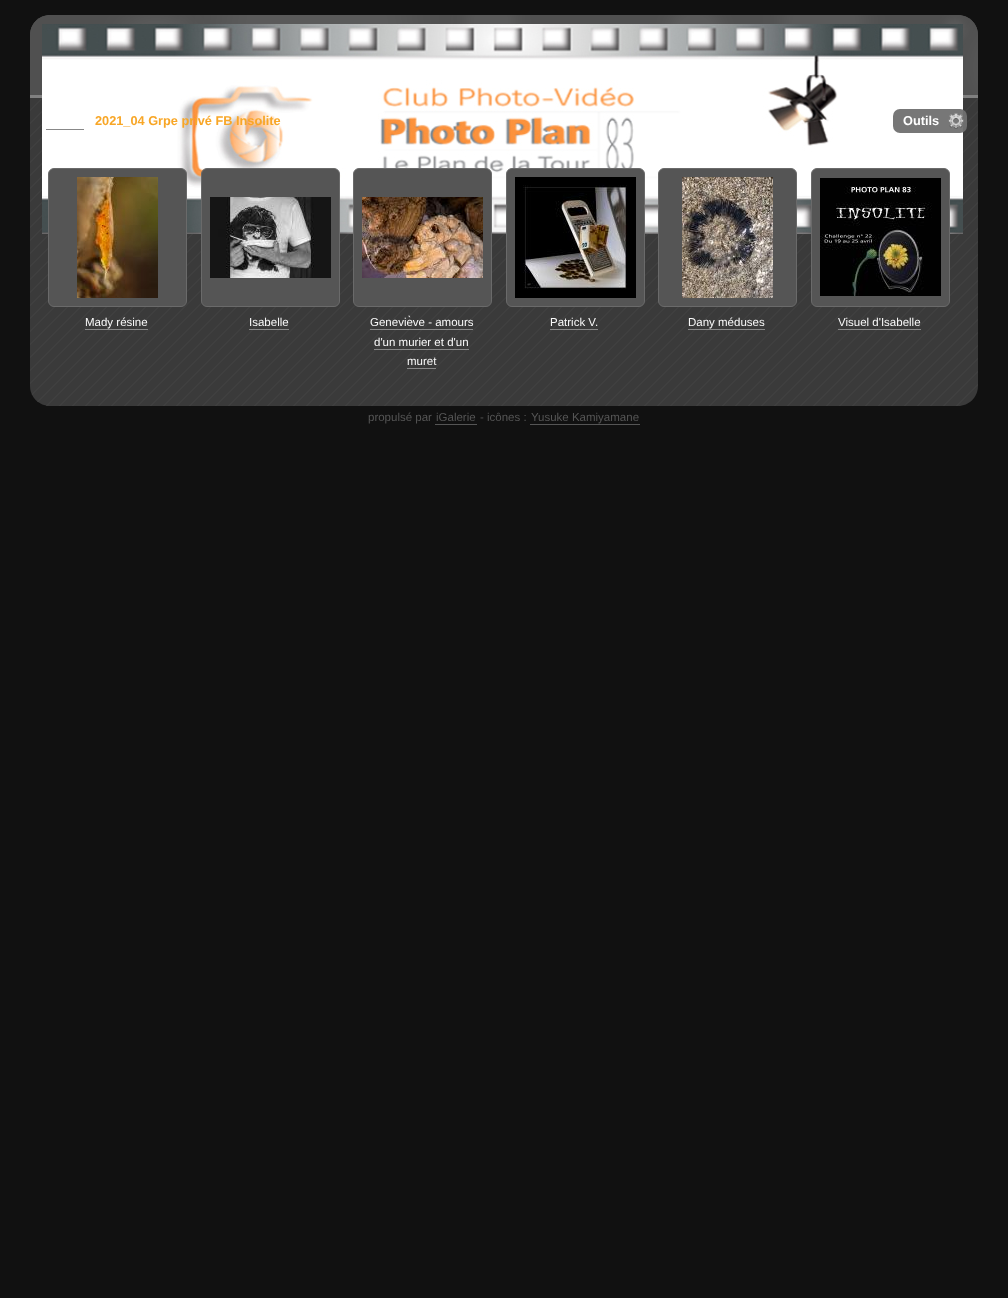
<svg xmlns="http://www.w3.org/2000/svg" width="1008" height="1298" viewBox="0 0 1008 1298">
  <rect width="100%" height="100%" fill="#111111"/>
  <path d="M50 15H958C969 15 978 24 978 35V98H30V35C30 24 39 15 50 15Z" fill="#505050"/>
  <image x="30" y="15" width="948" height="80" href="img1.png"/>
  <rect x="30" y="95" width="948" height="3" fill="#808080"/>
  <path d="M30 98H978V386C978 397 969 406 958 406H50C39 406 30 397 30 386Z" fill="#3a3a3a"/>
  <image x="30" y="98" width="948" height="308" href="img3.png"/>
  <image x="42" y="24" width="921" height="210" href="img2.png"/>
  <text x="95" y="125" font-family="Liberation Sans" font-size="12.75" font-weight="bold" fill="#f8a626">2021_04 Grpe privé FB Insolite</text>
  <rect x="46" y="129" width="38" height="1" fill="#888888"/>
  <rect x="893" y="109" width="74" height="24" rx="7" fill="#707070" fill-opacity="0.95"/>
  <image x="948" y="113" width="16" height="16" href="img4.png"/>
  <text x="903" y="125" font-family="Liberation Sans" font-size="12.75" font-weight="bold" fill="#ffffff">Outils</text>
  <rect x="48.5" y="168.5" width="138" height="138" rx="5.5" fill="#555555" stroke="#6a6a6a"/>
  <image x="77" y="177" width="81" height="121" href="img5.png"/>
  <text x="85" y="326" font-family="Liberation Sans" font-size="11.5" fill="#f9f9f9">Mady résine</text>
  <rect x="85" y="329" width="63" height="1" fill="#888888"/>
  <rect x="201.5" y="168.5" width="138" height="138" rx="5.5" fill="#555555" stroke="#6a6a6a"/>
  <image x="210" y="197" width="121" height="81" href="img6.png"/>
  <text x="249" y="326" font-family="Liberation Sans" font-size="11.5" fill="#f9f9f9">Isabelle</text>
  <rect x="249" y="329" width="40" height="1" fill="#888888"/>
  <rect x="353.5" y="168.5" width="138" height="138" rx="5.5" fill="#555555" stroke="#6a6a6a"/>
  <image x="362" y="197" width="121" height="81" href="img7.png"/>
  <text x="370" y="326" font-family="Liberation Sans" font-size="11.5" fill="#f9f9f9">Geneviève - amours</text>
  <rect x="370" y="329" width="103" height="1" fill="#888888"/>
  <text x="374" y="346" font-family="Liberation Sans" font-size="11.5" fill="#f9f9f9">d'un murier et d'un</text>
  <rect x="374" y="349" width="95" height="1" fill="#888888"/>
  <text x="407" y="365" font-family="Liberation Sans" font-size="11.5" fill="#f9f9f9">muret</text>
  <rect x="407" y="368" width="29" height="1" fill="#888888"/>
  <rect x="506.5" y="168.5" width="138" height="138" rx="5.5" fill="#555555" stroke="#6a6a6a"/>
  <image x="515" y="177" width="121" height="121" href="img8.png"/>
  <text x="550" y="326" font-family="Liberation Sans" font-size="11.5" fill="#f9f9f9">Patrick V.</text>
  <rect x="550" y="329" width="48" height="1" fill="#888888"/>
  <rect x="658.5" y="168.5" width="138" height="138" rx="5.5" fill="#555555" stroke="#6a6a6a"/>
  <image x="682" y="177" width="91" height="121" href="img9.png"/>
  <text x="688" y="326" font-family="Liberation Sans" font-size="11.5" fill="#f9f9f9">Dany méduses</text>
  <rect x="688" y="329" width="77" height="1" fill="#888888"/>
  <rect x="811.5" y="168.5" width="138" height="138" rx="5.5" fill="#555555" stroke="#6a6a6a"/>
  <image x="820" y="178" width="121" height="118" href="img10.png"/>
  <text x="838" y="326" font-family="Liberation Sans" font-size="11.5" fill="#f9f9f9">Visuel d'Isabelle</text>
  <rect x="838" y="329" width="83" height="1" fill="#888888"/>
  <text x="368" y="421" font-family="Liberation Sans" font-size="11.5" fill="#555555">propulsé par</text>
  <text x="436" y="421" font-family="Liberation Sans" font-size="11.5" fill="#555555">iGalerie</text>
  <rect x="435" y="424" width="42" height="1" fill="#555555"/>
  <text x="480" y="421" font-family="Liberation Sans" font-size="11.5" fill="#555555">- icônes :</text>
  <text x="531" y="421" font-family="Liberation Sans" font-size="11.5" fill="#555555">Yusuke Kamiyamane</text>
  <rect x="530" y="424" width="110" height="1" fill="#555555"/>
</svg>
